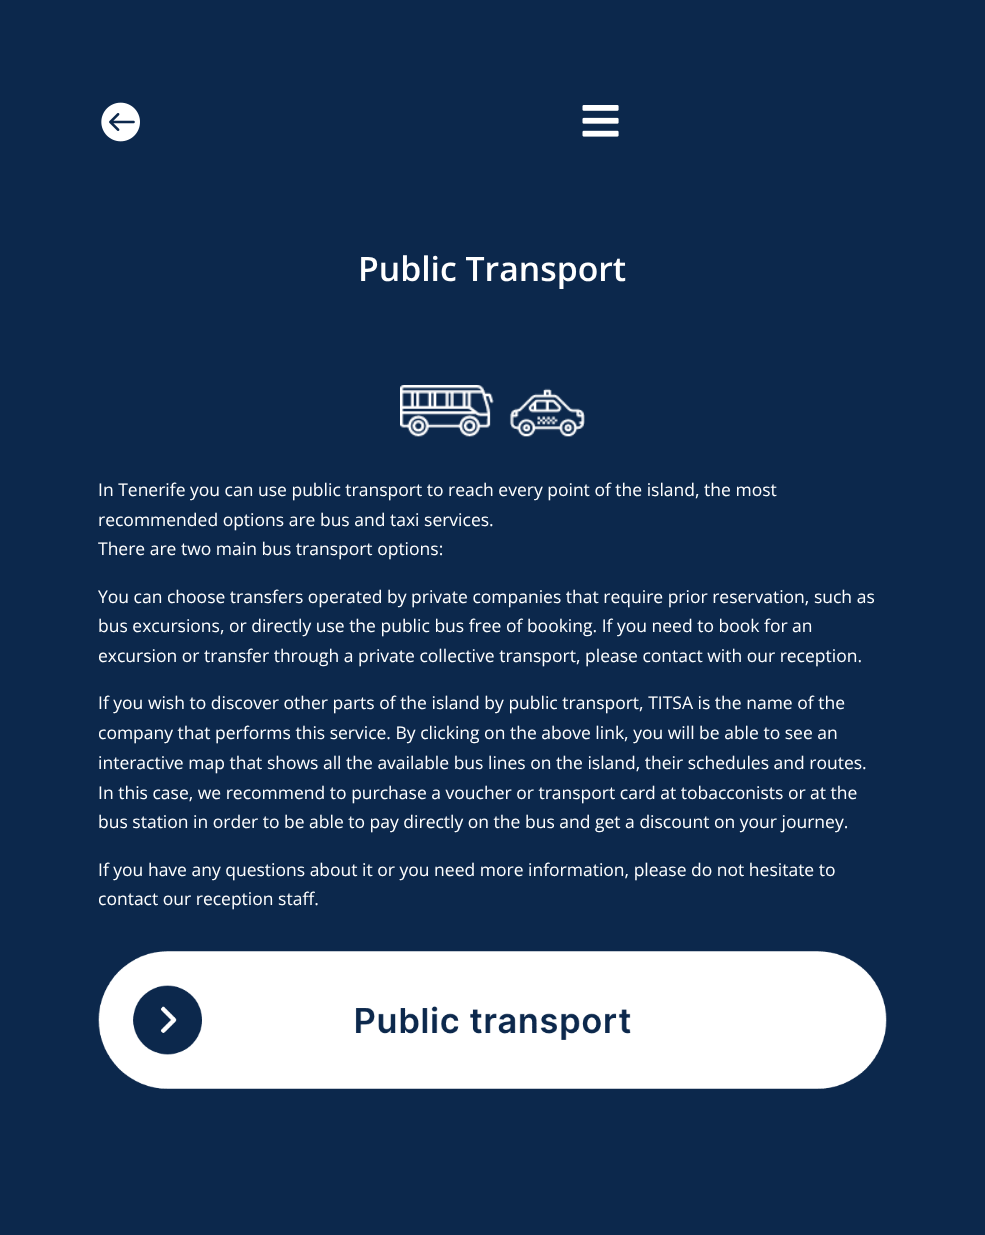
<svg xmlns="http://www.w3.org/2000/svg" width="985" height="1235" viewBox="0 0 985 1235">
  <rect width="100%" height="100%" fill="#0c284c"/>
  <image x="101" y="102" width="39" height="40" href="img1.png"/>
  <image x="582" y="105" width="37" height="32" href="img2.png"/>
  <text x="358" y="281" font-family="Open Sans" font-size="33.75" font-weight="600" fill="#ffffff">Public Transport</text>
  <image x="400" y="385" width="185" height="52" href="img3.png"/>
  <text x="98" y="496" font-family="Open Sans" font-size="17.5" fill="#ffffff">In Tenerife you can use public transport to reach every point of the island, the most</text>
  <text x="98" y="526" font-family="Open Sans" font-size="17.5" fill="#ffffff">recommended options are bus and taxi services.</text>
  <text x="98" y="555" font-family="Open Sans" font-size="17.5" fill="#ffffff">There are two main bus transport options:</text>
  <text x="98" y="603" font-family="Open Sans" font-size="17.5" fill="#ffffff">You can choose transfers operated by private companies that require prior reservation, such as</text>
  <text x="98" y="632" font-family="Open Sans" font-size="17.5" fill="#ffffff">bus excursions, or directly use the public bus free of booking. If you need to book for an</text>
  <text x="98" y="662" font-family="Open Sans" font-size="17.5" fill="#ffffff">excursion or transfer through a private collective transport, please contact with our reception.</text>
  <text x="98" y="709" font-family="Open Sans" font-size="17.5" fill="#ffffff">If you wish to discover other parts of the island by public transport, TITSA is the name of the</text>
  <text x="98" y="739" font-family="Open Sans" font-size="17.5" fill="#ffffff">company that performs this service. By clicking on the above link, you will be able to see an</text>
  <text x="98" y="769" font-family="Open Sans" font-size="17.5" fill="#ffffff">interactive map that shows all the available bus lines on the island, their schedules and routes.</text>
  <text x="98" y="799" font-family="Open Sans" font-size="17.5" fill="#ffffff">In this case, we recommend to purchase a voucher or transport card at tobacconists or at the</text>
  <text x="98" y="828" font-family="Open Sans" font-size="17.5" fill="#ffffff">bus station in order to be able to pay directly on the bus and get a discount on your journey.</text>
  <text x="98" y="876" font-family="Open Sans" font-size="17.5" fill="#ffffff">If you have any questions about it or you need more information, please do not hesitate to</text>
  <text x="98" y="905" font-family="Open Sans" font-size="17.5" fill="#ffffff">contact our reception staff.</text>
  <image x="98" y="951" width="789" height="138" href="img4.png"/>
</svg>
